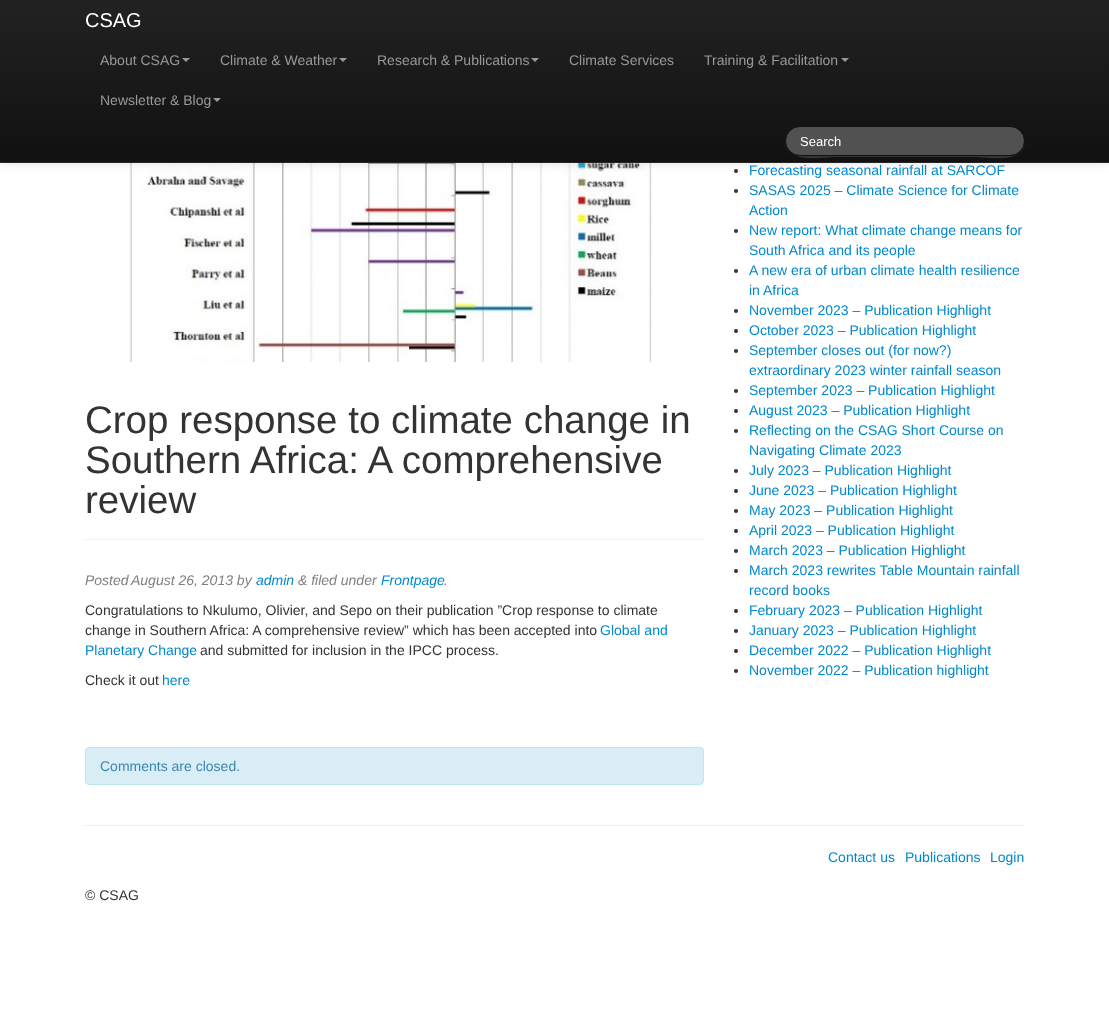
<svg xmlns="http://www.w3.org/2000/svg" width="1109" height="1013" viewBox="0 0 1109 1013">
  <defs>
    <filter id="blur1" x="-50%" y="-200%" width="200%" height="500%"><feGaussianBlur stdDeviation="5"/></filter>
    <linearGradient id="g1" gradientUnits="userSpaceOnUse" x1="555" y1="0" x2="555" y2="162"><stop offset="0" stop-color="#222222"/><stop offset="1" stop-color="#111111"/></linearGradient>
  </defs>
  <rect width="100%" height="100%" fill="#ffffff"/>
  <image x="129" y="163" width="523" height="199" href="img1.png"/>
  <circle cx="736" cy="171" r="2" fill="#333333"/>
  <rect x="0" y="1" width="1109" height="163" fill="#000000" fill-opacity="0.1" filter="url(#blur1)"/>
  <rect x="0" y="0" width="1109" height="162" fill="url(#g1)"/>
  <rect x="0" y="162" width="1109" height="1" fill="#252525"/>
  <text x="85" y="27" font-family="Liberation Sans" font-size="20" fill="#ffffff">CSAG</text>
  <text x="100" y="65" font-family="Liberation Sans" font-size="14" fill="#999999">About CSAG</text>
  <path d="M182 58H190L186 62Z" fill="#999999"/>
  <text x="220" y="65" font-family="Liberation Sans" font-size="14" fill="#999999">Climate &amp; Weather</text>
  <path d="M339 58H347L343 62Z" fill="#999999"/>
  <text x="377" y="65" font-family="Liberation Sans" font-size="14" fill="#999999">Research &amp; Publications</text>
  <path d="M531 58H539L535 62Z" fill="#999999"/>
  <text x="569" y="65" font-family="Liberation Sans" font-size="14" fill="#999999">Climate Services</text>
  <text x="704" y="65" font-family="Liberation Sans" font-size="14" fill="#999999">Training &amp; Facilitation</text>
  <path d="M841 58H849L845 62Z" fill="#999999"/>
  <text x="100" y="105" font-family="Liberation Sans" font-size="14" fill="#999999">Newsletter &amp; Blog</text>
  <path d="M213 98H221L217 102Z" fill="#999999"/>
  <path d="M785 141C784 165 826 157 835 157H975C984 157 1026 165 1025 141C1025 150 1018 156 1010 156H800C792 156 785 150 785 141Z" fill="#353535"/>
  <rect x="785.5" y="126.5" width="239" height="29" rx="14.5" fill="#515151" stroke="#111111"/>
  <text x="800" y="146" font-family="Liberation Sans" font-size="13" fill="#ffffff">Search</text>
  <rect x="85" y="539" width="619" height="1" fill="#eeeeee"/>
  <text x="85" y="433" font-family="Liberation Sans" font-size="38.5" fill="#333333">Crop response to climate change in</text>
  <text x="85" y="473" font-family="Liberation Sans" font-size="38.5" fill="#333333">Southern Africa: A comprehensive</text>
  <text x="85" y="513" font-family="Liberation Sans" font-size="38.5" fill="#333333">review</text>
  <text x="85" y="585" font-family="Liberation Sans" font-size="14" font-style="italic" fill="#808080">Posted</text>
  <text x="131" y="585" font-family="Liberation Sans" font-size="14" font-style="italic" fill="#808080">August 26, 2013 by</text>
  <text x="256" y="585" font-family="Liberation Sans" font-size="14" font-style="italic" fill="#0088cc">admin</text>
  <text x="298" y="585" font-family="Liberation Sans" font-size="14" font-style="italic" fill="#808080">&amp; filed under</text>
  <text x="381" y="585" font-family="Liberation Sans" font-size="14" font-style="italic" fill="#0088cc">Frontpage</text>
  <text x="444" y="585" font-family="Liberation Sans" font-size="14" font-style="italic" fill="#808080">.</text>
  <text x="85" y="615" font-family="Liberation Sans" font-size="14" fill="#333333">Congratulations to Nkulumo, Olivier, and Sepo on their publication ”Crop response to climate</text>
  <text x="85" y="635" font-family="Liberation Sans" font-size="14" fill="#333333">change in Southern Africa: A comprehensive review” which has been accepted into</text>
  <text x="600" y="635" font-family="Liberation Sans" font-size="14" fill="#0088cc">Global and</text>
  <text x="85" y="655" font-family="Liberation Sans" font-size="14" fill="#0088cc">Planetary Change</text>
  <text x="200" y="655" font-family="Liberation Sans" font-size="14" fill="#333333">and submitted for inclusion in the IPCC process.</text>
  <text x="85" y="685" font-family="Liberation Sans" font-size="14" fill="#333333">Check it out</text>
  <text x="162" y="685" font-family="Liberation Sans" font-size="14" fill="#0088cc">here</text>
  <rect x="85.5" y="747.5" width="618" height="37" rx="3.5" fill="#d9edf7" stroke="#bce8f1"/>
  <text x="100" y="771" font-family="Liberation Sans" font-size="14" fill="#3a87ad">Comments are closed.</text>
  <text x="749" y="175" font-family="Liberation Sans" font-size="14" fill="#0088cc">Forecasting seasonal rainfall at SARCOF</text>
  <circle cx="736" cy="191" r="2" fill="#333333"/>
  <text x="749" y="195" font-family="Liberation Sans" font-size="14" fill="#0088cc">SASAS 2025 – Climate Science for Climate</text>
  <text x="749" y="215" font-family="Liberation Sans" font-size="14" fill="#0088cc">Action</text>
  <circle cx="736" cy="231" r="2" fill="#333333"/>
  <text x="749" y="235" font-family="Liberation Sans" font-size="14" fill="#0088cc">New report: What climate change means for</text>
  <text x="749" y="255" font-family="Liberation Sans" font-size="14" fill="#0088cc">South Africa and its people</text>
  <circle cx="736" cy="271" r="2" fill="#333333"/>
  <text x="749" y="275" font-family="Liberation Sans" font-size="14" fill="#0088cc">A new era of urban climate health resilience</text>
  <text x="749" y="295" font-family="Liberation Sans" font-size="14" fill="#0088cc">in Africa</text>
  <circle cx="736" cy="311" r="2" fill="#333333"/>
  <text x="749" y="315" font-family="Liberation Sans" font-size="14" fill="#0088cc">November 2023 – Publication Highlight</text>
  <circle cx="736" cy="331" r="2" fill="#333333"/>
  <text x="749" y="335" font-family="Liberation Sans" font-size="14" fill="#0088cc">October 2023 – Publication Highlight</text>
  <circle cx="736" cy="351" r="2" fill="#333333"/>
  <text x="749" y="355" font-family="Liberation Sans" font-size="14" fill="#0088cc">September closes out (for now?)</text>
  <text x="749" y="375" font-family="Liberation Sans" font-size="14" fill="#0088cc">extraordinary 2023 winter rainfall season</text>
  <circle cx="736" cy="391" r="2" fill="#333333"/>
  <text x="749" y="395" font-family="Liberation Sans" font-size="14" fill="#0088cc">September 2023 – Publication Highlight</text>
  <circle cx="736" cy="411" r="2" fill="#333333"/>
  <text x="749" y="415" font-family="Liberation Sans" font-size="14" fill="#0088cc">August 2023 – Publication Highlight</text>
  <circle cx="736" cy="431" r="2" fill="#333333"/>
  <text x="749" y="435" font-family="Liberation Sans" font-size="14" fill="#0088cc">Reflecting on the CSAG Short Course on</text>
  <text x="749" y="455" font-family="Liberation Sans" font-size="14" fill="#0088cc">Navigating Climate 2023</text>
  <circle cx="736" cy="471" r="2" fill="#333333"/>
  <text x="749" y="475" font-family="Liberation Sans" font-size="14" fill="#0088cc">July 2023 – Publication Highlight</text>
  <circle cx="736" cy="491" r="2" fill="#333333"/>
  <text x="749" y="495" font-family="Liberation Sans" font-size="14" fill="#0088cc">June 2023 – Publication Highlight</text>
  <circle cx="736" cy="511" r="2" fill="#333333"/>
  <text x="749" y="515" font-family="Liberation Sans" font-size="14" fill="#0088cc">May 2023 – Publication Highlight</text>
  <circle cx="736" cy="531" r="2" fill="#333333"/>
  <text x="749" y="535" font-family="Liberation Sans" font-size="14" fill="#0088cc">April 2023 – Publication Highlight</text>
  <circle cx="736" cy="551" r="2" fill="#333333"/>
  <text x="749" y="555" font-family="Liberation Sans" font-size="14" fill="#0088cc">March 2023 – Publication Highlight</text>
  <circle cx="736" cy="571" r="2" fill="#333333"/>
  <text x="749" y="575" font-family="Liberation Sans" font-size="14" fill="#0088cc">March 2023 rewrites Table Mountain rainfall</text>
  <text x="749" y="595" font-family="Liberation Sans" font-size="14" fill="#0088cc">record books</text>
  <circle cx="736" cy="611" r="2" fill="#333333"/>
  <text x="749" y="615" font-family="Liberation Sans" font-size="14" fill="#0088cc">February 2023 – Publication Highlight</text>
  <circle cx="736" cy="631" r="2" fill="#333333"/>
  <text x="749" y="635" font-family="Liberation Sans" font-size="14" fill="#0088cc">January 2023 – Publication Highlight</text>
  <circle cx="736" cy="651" r="2" fill="#333333"/>
  <text x="749" y="655" font-family="Liberation Sans" font-size="14" fill="#0088cc">December 2022 – Publication Highlight</text>
  <circle cx="736" cy="671" r="2" fill="#333333"/>
  <text x="749" y="675" font-family="Liberation Sans" font-size="14" fill="#0088cc">November 2022 – Publication highlight</text>
  <rect x="85" y="825" width="940" height="1" fill="#eeeeee"/>
  <text x="828" y="862" font-family="Liberation Sans" font-size="14" fill="#0088cc">Contact us</text>
  <text x="905" y="862" font-family="Liberation Sans" font-size="14" fill="#0088cc">Publications</text>
  <text x="990" y="862" font-family="Liberation Sans" font-size="14" fill="#0088cc">Login</text>
  <text x="85" y="900" font-family="Liberation Sans" font-size="14" fill="#333333">© CSAG</text>
</svg>
